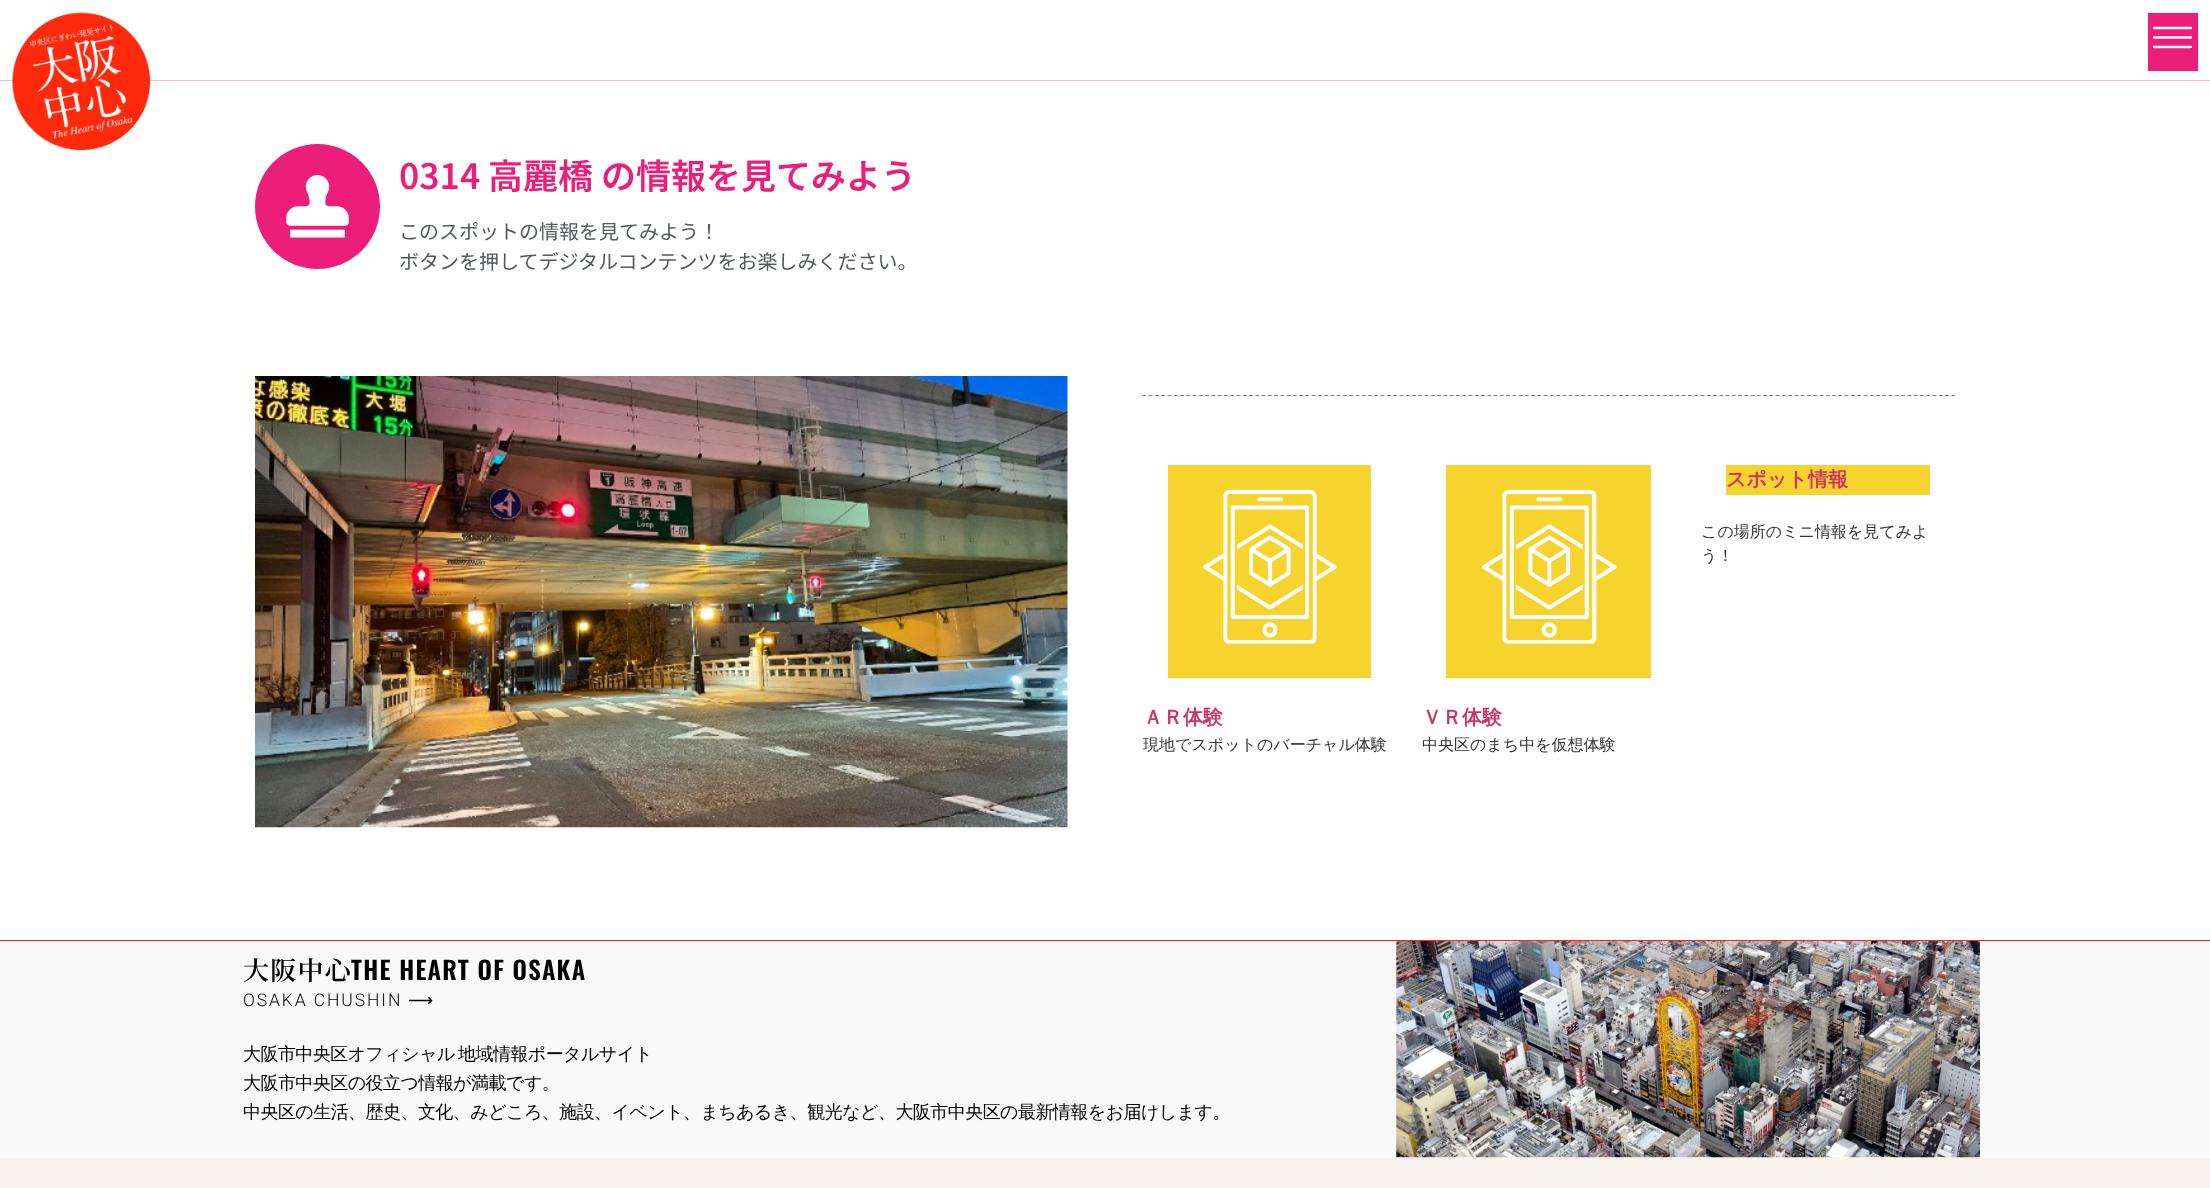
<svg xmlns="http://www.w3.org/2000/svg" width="2210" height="1188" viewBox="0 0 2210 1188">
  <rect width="100%" height="100%" fill="#ffffff"/>
  <rect x="0" y="80" width="2210" height="1" fill="#f9b5d3"/>
  <image x="12" y="12" width="138" height="138" href="img1.png"/>
  <rect x="2148" y="13" width="50" height="58" fill="#ed1e79"/>
  <path d="M2154 28H2191M2154 37.5H2191M2154 47H2191" fill="none" stroke="#ffffff" stroke-width="2.3" stroke-linecap="round"/>
  <circle cx="317.5" cy="206.5" r="62.5" fill="#ed1e79"/>
  <image x="286" y="175" width="63" height="63" href="img2.png"/>
  <text x="399" y="189" font-family="Noto Sans JP" font-size="35" font-weight="600" fill="#ed1e79">0314 高麗橋 の情報を見てみよう</text>
  <text x="399" y="239" font-family="Noto Sans JP" font-size="20" fill="#54595f">このスポットの情報を見てみよう！</text>
  <text x="399" y="269" font-family="Noto Sans JP" font-size="20" fill="#54595f">ボタンを押してデジタルコンテンツをお楽しみください。</text>
  <image x="255" y="376" width="813" height="452" href="img3.png"/>
  <path d="M1142.5 395.5H1955" fill="none" stroke="#7a7a7a" stroke-width="1.2" stroke-dasharray="3.75 2.52"/>
  <rect x="1726" y="465" width="204" height="30" fill="#f7d42d"/>
  <text x="1726" y="486" font-family="WenQuanYi Zen Hei" font-size="20" font-weight="bold" fill="#cc3366">スポット情報</text>
  <text x="1701" y="537" font-family="WenQuanYi Zen Hei" font-size="16" font-weight="500" fill="#333333">この場所のミニ情報を見てみよ</text>
  <text x="1701" y="561" font-family="WenQuanYi Zen Hei" font-size="16" font-weight="500" fill="#333333">う！</text>
  <rect x="1168" y="465" width="203" height="213" fill="#f7d42d"/>
  <image x="1203" y="489" width="134" height="155" href="img4.png"/>
  <text x="1143" y="724" font-family="WenQuanYi Zen Hei" font-size="20" font-weight="bold" fill="#cc3366">ＡＲ体験</text>
  <text x="1143" y="750" font-family="WenQuanYi Zen Hei" font-size="16" font-weight="500" fill="#333333">現地でスポットのバーチャル体験</text>
  <rect x="1446" y="465" width="205" height="213" fill="#f7d42d"/>
  <image x="1482" y="489" width="135" height="155" href="img5.png"/>
  <text x="1422" y="724" font-family="WenQuanYi Zen Hei" font-size="20" font-weight="bold" fill="#cc3366">ＶＲ体験</text>
  <text x="1422" y="750" font-family="WenQuanYi Zen Hei" font-size="16" font-weight="500" fill="#333333">中央区のまち中を仮想体験</text>
  <rect x="0" y="941" width="2210" height="217" fill="#f9f9f9"/>
  <rect x="0" y="940" width="2210" height="1" fill="#ff2511"/>
  <text x="243" y="980" font-family="Noto Serif JP" font-size="26" font-weight="600" letter-spacing="1.25" fill="#000000">大阪中心</text>
  <text x="351" y="980" font-family="Oswald" font-size="25" font-weight="600" letter-spacing="1.25" fill="#000000">THE HEART OF OSAKA</text>
  <text x="243" y="1006" font-family="Roboto" font-size="17.5" font-weight="300" letter-spacing="1.9" fill="#000000">OSAKA CHUSHIN</text>
  <text x="408" y="1006" font-family="DejaVu Sans" font-size="17.5" letter-spacing="1.9" fill="#000000">⟶</text>
  <text x="243" y="1060" font-family="WenQuanYi Zen Hei" font-size="18" font-weight="500" letter-spacing="-0.55" fill="#000000">大阪市中央区オフィシャル</text>
  <text x="458" y="1060" font-family="WenQuanYi Zen Hei" font-size="18" font-weight="500" letter-spacing="-0.55" fill="#000000">地域情報ポータルサイト</text>
  <text x="243" y="1089" font-family="WenQuanYi Zen Hei" font-size="18" font-weight="500" letter-spacing="-0.55" fill="#000000">大阪市中央区の役立つ情報が満載です。</text>
  <text x="243" y="1118" font-family="WenQuanYi Zen Hei" font-size="18" font-weight="500" letter-spacing="-0.55" fill="#000000">中央区の生活、歴史、文化、みどころ、施設、イベント、まちあるき、観光など、大阪市中央区の最新情報をお届けします。</text>
  <image x="1396" y="941" width="584" height="217" href="img6.png"/>
  <rect x="0" y="1158" width="2210" height="30" fill="#f8f3ef"/>
</svg>
